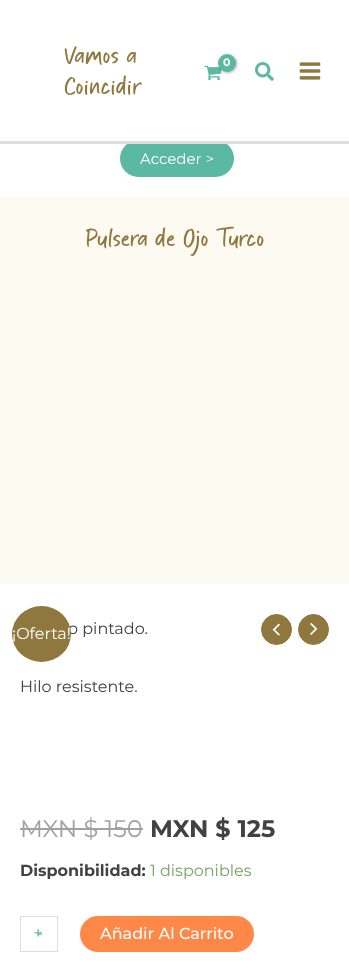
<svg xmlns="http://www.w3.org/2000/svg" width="349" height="966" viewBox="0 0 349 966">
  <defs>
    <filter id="blur1" x="-50%" y="-200%" width="200%" height="500%"><feGaussianBlur stdDeviation="1.5"/></filter>
  </defs>
  <rect width="100%" height="100%" fill="#ffffff"/>
  <rect x="120" y="140" width="114" height="37" rx="18.5" fill="#5bb8a2"/>
  <rect x="132" y="140" width="90" height="1" fill="#ffffff"/>
  <rect x="0" y="141" width="349" height="3" fill="#dddddd"/>
  <text x="64" y="63" font-family="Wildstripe" font-size="25" fill="#90773e">Vamos a</text>
  <text x="64" y="94" font-family="Wildstripe" font-size="25" fill="#90773e">Coincidir</text>
  <image x="204" y="65" width="18" height="16" href="img1.png"/>
  <rect x="219" y="55" width="18" height="18" rx="9" fill="#000000" fill-opacity="0.3" filter="url(#blur1)"/>
  <circle cx="227" cy="63" r="9" fill="#5bb8a2"/>
  <text x="223" y="66" font-family="Montserrat" font-size="11" font-weight="bold" fill="#ffffff">0</text>
  <image x="255" y="62" width="19" height="19" href="img2.png"/>
  <image x="299" y="62" width="22" height="18" href="img3.png"/>
  <rect x="0" y="198" width="349" height="1" fill="#f2f5f7"/>
  <text x="140" y="164" font-family="Montserrat" font-size="15" fill="#ffffff">Acceder &gt;</text>
  <rect x="0" y="199" width="349" height="385" fill="#fdfaf1"/>
  <text x="85" y="246" font-family="Wildstripe" font-size="25" fill="#90773e">Pulsera de Ojo Turco</text>
  <text x="68" y="634" font-family="Montserrat" font-size="16" fill="#424242">o pintado.</text>
  <text x="20" y="692" font-family="Montserrat" font-size="16" fill="#424242">Hilo resistente.</text>
  <circle cx="276.5" cy="629.5" r="15" fill="#90773e" stroke="#90773e"/>
  <image x="272" y="623" width="8" height="13" href="img4.png"/>
  <circle cx="313.5" cy="629.5" r="15" fill="#90773e" stroke="#90773e"/>
  <image x="310" y="623" width="8" height="12" href="img5.png"/>
  <text x="20" y="837" font-family="Montserrat" font-size="24" fill="#a1a1a1">MXN $ 150</text>
  <rect x="20" y="828" width="123" height="2" fill="#a1a1a1"/>
  <text x="150" y="837" font-family="Montserrat" font-size="24" font-weight="bold" fill="#424242">MXN $ 125</text>
  <text x="20" y="876" font-family="Montserrat" font-size="16" font-weight="bold" fill="#424242">Disponibilidad:</text>
  <text x="150" y="876" font-family="Montserrat" font-size="16" fill="#77a464">1 disponibles</text>
  <rect x="20" y="916" width="38" height="1" fill="#dddddd"/>
  <rect x="20" y="951" width="38" height="1" fill="#dddddd"/>
  <rect x="57" y="916" width="1" height="36" fill="#dddddd"/>
  <text x="36" y="939" font-family="Montserrat" font-size="18" fill="#5bb8a2">-</text>
  <text x="33" y="939" font-family="Montserrat" font-size="18" fill="#5bb8a2">+</text>
  <rect x="20" y="916" width="1" height="36" fill="#dddddd"/>
  <rect x="80" y="916" width="174" height="36" rx="18" fill="#ff8748"/>
  <text x="100" y="939" font-family="Montserrat" font-size="16" font-weight="500" fill="#ffffff">Añadir Al Carrito</text>
  <ellipse cx="41.5" cy="634" rx="29.5" ry="28" fill="#90773e"/>
  <text x="12" y="639" font-family="Montserrat" font-size="16" fill="#ffffff">¡Oferta!</text>
</svg>
